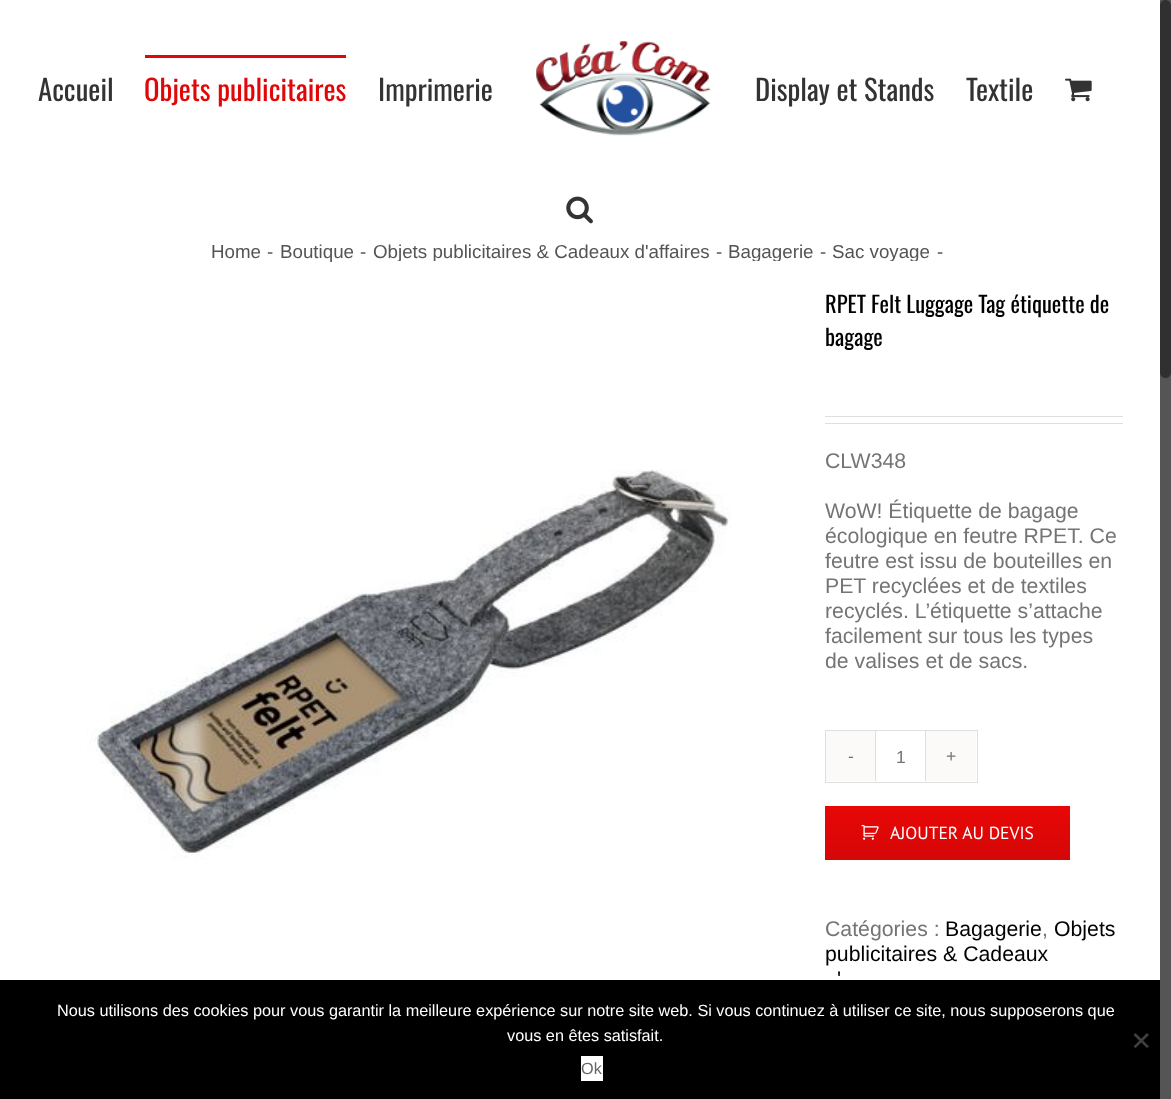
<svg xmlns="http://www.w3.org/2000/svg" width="1171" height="1099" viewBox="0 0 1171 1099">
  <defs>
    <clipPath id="clip1"><rect x="38" y="240" width="1085" height="21"/></clipPath>
    <linearGradient id="g1" gradientUnits="userSpaceOnUse" x1="948" y1="860" x2="948" y2="806"><stop offset="0" stop-color="#d60707"/><stop offset="1" stop-color="#e80707"/></linearGradient>
  </defs>
  <rect width="100%" height="100%" fill="#ffffff"/>
  <text x="38" y="101" font-family="Oswald" font-size="28.75" fill="#333333">Accueil</text>
  <rect x="145" y="55" width="201" height="3" fill="#e10707"/>
  <text x="144" y="101" font-family="Oswald" font-size="28.75" fill="#e10707">Objets publicitaires</text>
  <text x="378" y="101" font-family="Oswald" font-size="28.75" fill="#333333">Imprimerie</text>
  <image x="536" y="41" width="175" height="95" href="img1.png"/>
  <text x="755" y="101" font-family="Oswald" font-size="28.75" fill="#333333">Display et Stands</text>
  <text x="966" y="101" font-family="Oswald" font-size="28.75" fill="#333333">Textile</text>
  <image x="1065" y="78" width="27" height="24" href="img2.png"/>
  <image x="566" y="196" width="27" height="28" href="img3.png"/>
  <text x="211" y="258" font-family="Liberation Sans" font-size="18.75" fill="#545454">Home</text>
  <text x="267" y="258" font-family="Liberation Sans" font-size="18.75" fill="#545454">-</text>
  <text x="280" y="258" font-family="Liberation Sans" font-size="18.75" fill="#545454">Boutique</text>
  <text x="360" y="258" font-family="Liberation Sans" font-size="18.75" fill="#545454">-</text>
  <g clip-path="url(#clip1)">
    <text x="373" y="258" font-family="Liberation Sans" font-size="18.75" fill="#545454">Objets publicitaires &amp; Cadeaux d'affaires</text>
  </g>
  <text x="716" y="258" font-family="Liberation Sans" font-size="18.75" fill="#545454">-</text>
  <g clip-path="url(#clip1)">
    <text x="728" y="258" font-family="Liberation Sans" font-size="18.75" fill="#545454">Bagagerie</text>
  </g>
  <text x="820" y="258" font-family="Liberation Sans" font-size="18.75" fill="#545454">-</text>
  <g clip-path="url(#clip1)">
    <text x="832" y="258" font-family="Liberation Sans" font-size="18.75" fill="#545454">Sac voyage</text>
  </g>
  <text x="937" y="258" font-family="Liberation Sans" font-size="18.75" fill="#545454">-</text>
  <image x="87" y="469" width="644" height="391" href="img4.png"/>
  <text x="825" y="313" font-family="Oswald" font-size="22.5" fill="#000000">RPET Felt Luggage Tag étiquette de</text>
  <text x="825" y="346" font-family="Oswald" font-size="22.5" fill="#000000">bagage</text>
  <rect x="825" y="416" width="298" height="1" fill="#e0dede"/>
  <rect x="825" y="423" width="298" height="1" fill="#e0dede"/>
  <text x="825" y="468" font-family="Liberation Sans" font-size="21.25" fill="#747474">CLW348</text>
  <text x="825" y="518" font-family="Liberation Sans" font-size="21.25" fill="#747474">WoW! Étiquette de bagage</text>
  <text x="825" y="543" font-family="Liberation Sans" font-size="21.25" fill="#747474">écologique en feutre RPET. Ce</text>
  <text x="825" y="568" font-family="Liberation Sans" font-size="21.25" fill="#747474">feutre est issu de bouteilles en</text>
  <text x="825" y="593" font-family="Liberation Sans" font-size="21.25" fill="#747474">PET recyclées et de textiles</text>
  <text x="825" y="618" font-family="Liberation Sans" font-size="21.25" fill="#747474">recyclés. L’étiquette s’attache</text>
  <text x="825" y="643" font-family="Liberation Sans" font-size="21.25" fill="#747474">facilement sur tous les types</text>
  <text x="825" y="668" font-family="Liberation Sans" font-size="21.25" fill="#747474">de valises et de sacs.</text>
  <rect x="825.5" y="730.5" width="152" height="52" fill="none" stroke="#e0dede"/>
  <rect x="826" y="731" width="49" height="50" fill="#fbfaf9"/>
  <rect x="875" y="731" width="1" height="50" fill="#e0dede"/>
  <text x="848" y="762" font-family="Liberation Sans" font-size="17.5" fill="#747474">-</text>
  <rect x="925" y="731" width="1" height="50" fill="#e0dede"/>
  <text x="896" y="763" font-family="Liberation Sans" font-size="17.5" fill="#747474">1</text>
  <rect x="926" y="731" width="50" height="50" fill="#fbfaf9"/>
  <text x="946" y="762" font-family="Liberation Sans" font-size="17.5" fill="#747474">+</text>
  <rect x="825" y="806" width="245" height="54" fill="url(#g1)"/>
  <image x="861" y="824" width="18" height="16" href="img5.png"/>
  <text x="890" y="839" font-family="PT Sans" font-size="17.5" fill="#ffffff">AJOUTER AU DEVIS</text>
  <text x="825" y="936" font-family="Liberation Sans" font-size="21.25" fill="#747474">Catégories :</text>
  <text x="945" y="936" font-family="Liberation Sans" font-size="21.25" fill="#000000">Bagagerie</text>
  <text x="1042" y="936" font-family="Liberation Sans" font-size="21.25" fill="#747474">,</text>
  <text x="1054" y="936" font-family="Liberation Sans" font-size="21.25" fill="#000000">Objets</text>
  <text x="825" y="961" font-family="Liberation Sans" font-size="21.25" fill="#000000">publicitaires &amp; Cadeaux</text>
  <text x="837" y="986" font-family="Liberation Sans" font-size="21.25" fill="#000000">'</text>
  <rect x="1160" y="0" width="11" height="1099" fill="#555555"/>
  <rect x="1160" y="0" width="11" height="378" rx="5.5" fill="#303030"/>
  <rect x="0" y="980" width="1160" height="119" fill="#000000"/>
  <text x="57" y="1016" font-family="Liberation Sans" font-size="16.25" fill="#ffffff">Nous utilisons des cookies pour vous garantir la meilleure expérience sur notre site web. Si vous continuez à utiliser ce site, nous supposerons que</text>
  <text x="507" y="1041" font-family="Liberation Sans" font-size="16.25" fill="#ffffff">vous en êtes satisfait.</text>
  <path d="M1147 1033L1149 1035L1135.5 1048L1133.5 1046.5Z" fill="#404040"/>
  <path d="M1133.5 1035L1135.5 1033L1149 1046.5L1147 1048Z" fill="#404040"/>
  <rect x="581" y="1056" width="22" height="25" fill="#ffffff"/>
  <text x="581" y="1074" font-family="Liberation Sans" font-size="16.25" fill="#666666">Ok</text>
</svg>
